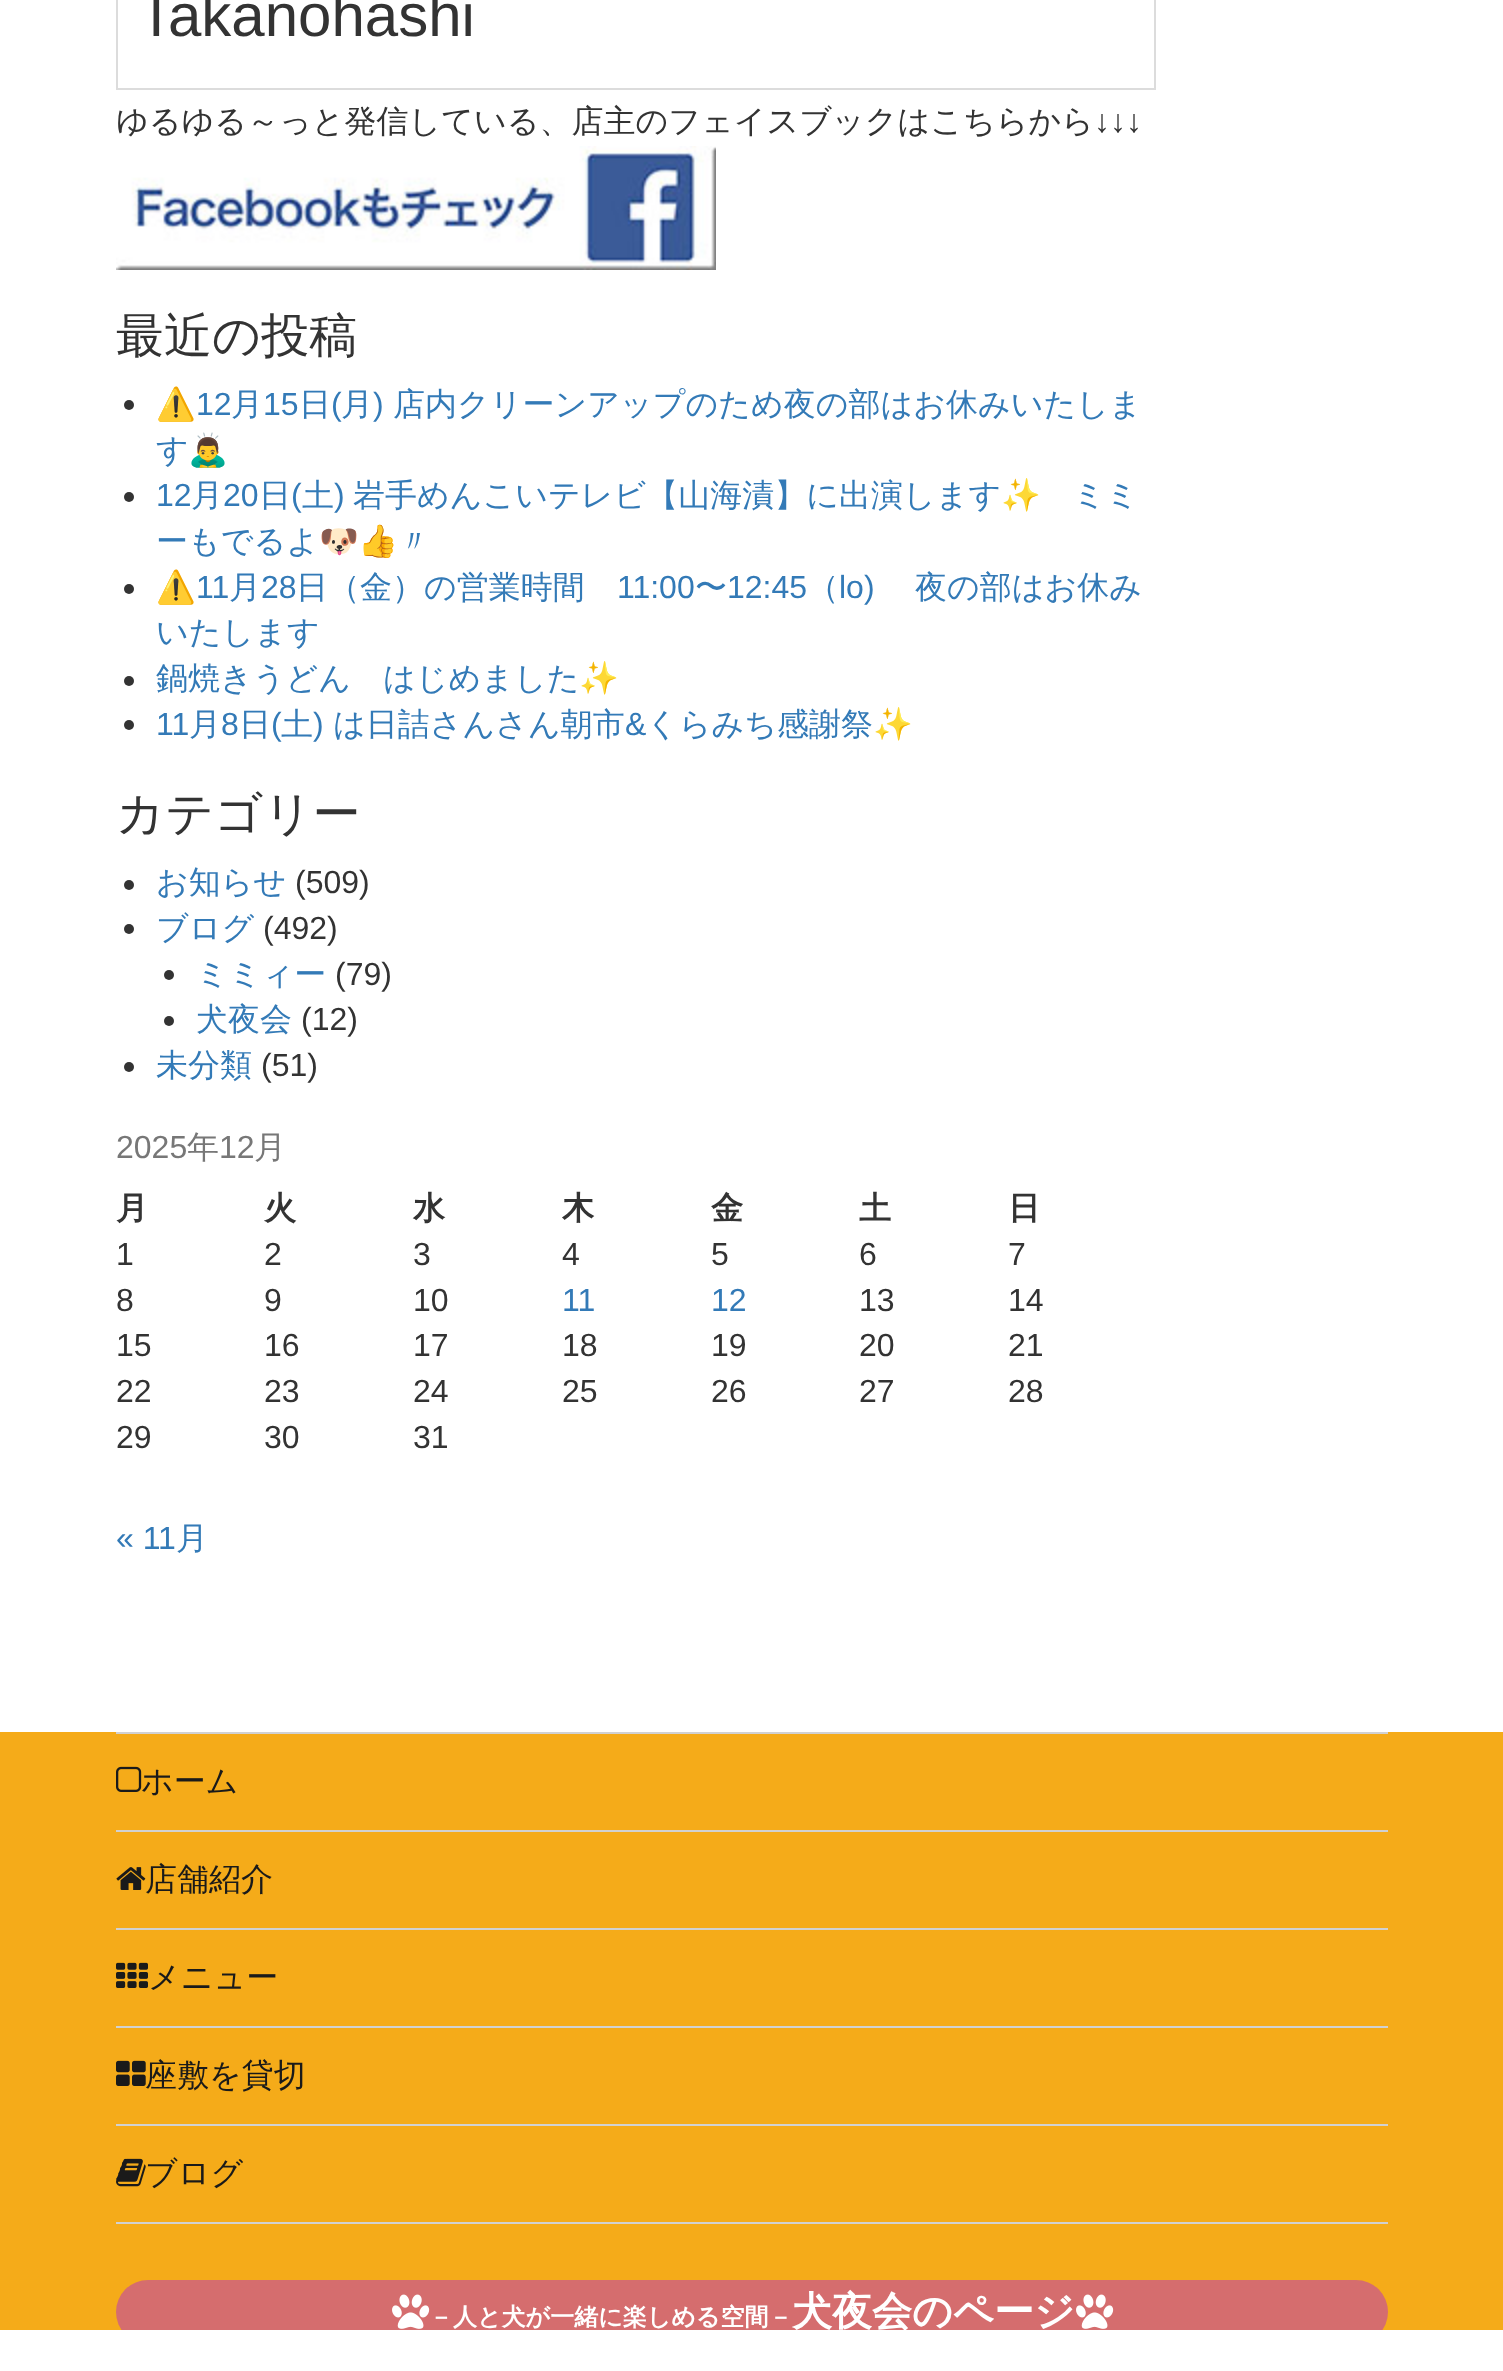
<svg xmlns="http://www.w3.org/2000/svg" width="1503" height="2371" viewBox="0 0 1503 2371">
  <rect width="100%" height="100%" fill="#ffffff"/>
  <rect x="117" y="-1" width="1038" height="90" fill="none" stroke="#dcdcdc" stroke-width="2"/>
  <text x="138" y="36" font-family="Liberation Sans" font-size="60" fill="#333333">Takanohashi</text>
  <text x="116" y="132" font-family="WenQuanYi Zen Hei" font-size="32" font-weight="500" fill="#333333">ゆるゆる～っと発信している、店主のフェイスブックはこちらから</text>
  <text x="1094" y="132" font-family="Liberation Sans" font-size="32" fill="#333333">↓↓↓</text>
  <image x="116" y="146" width="600" height="124" href="img1.png"/>
  <text x="116" y="352" font-family="WenQuanYi Zen Hei" font-size="48" font-weight="500" fill="#333333">最近の投稿</text>
  <circle cx="129" cy="405" r="5" fill="#333333"/>
  <text x="156" y="415" font-family="Noto Color Emoji" font-size="32" fill="#337ab7">⚠️</text>
  <text x="196" y="415" font-family="Liberation Sans" font-size="32" fill="#337ab7">12</text>
  <text x="231" y="415" font-family="WenQuanYi Zen Hei" font-size="32" font-weight="500" fill="#337ab7">月</text>
  <text x="263" y="415" font-family="Liberation Sans" font-size="32" fill="#337ab7">15</text>
  <text x="299" y="415" font-family="WenQuanYi Zen Hei" font-size="32" font-weight="500" fill="#337ab7">日</text>
  <text x="331" y="415" font-family="Liberation Sans" font-size="32" fill="#337ab7">(</text>
  <text x="341" y="415" font-family="WenQuanYi Zen Hei" font-size="32" font-weight="500" fill="#337ab7">月</text>
  <text x="373" y="415" font-family="Liberation Sans" font-size="32" fill="#337ab7">)</text>
  <text x="393" y="415" font-family="WenQuanYi Zen Hei" font-size="32" font-weight="500" fill="#337ab7">店内クリーンアップのため夜の部はお休みいたしま</text>
  <text x="156" y="461" font-family="WenQuanYi Zen Hei" font-size="32" font-weight="500" fill="#337ab7">す</text>
  <text x="188" y="461" font-family="Noto Color Emoji" font-size="32" fill="#337ab7">🙇‍♂️</text>
  <circle cx="129" cy="497" r="5" fill="#333333"/>
  <text x="156" y="506" font-family="Liberation Sans" font-size="32" fill="#337ab7">12</text>
  <text x="191" y="506" font-family="WenQuanYi Zen Hei" font-size="32" font-weight="500" fill="#337ab7">月</text>
  <text x="223" y="506" font-family="Liberation Sans" font-size="32" fill="#337ab7">20</text>
  <text x="259" y="506" font-family="WenQuanYi Zen Hei" font-size="32" font-weight="500" fill="#337ab7">日</text>
  <text x="291" y="506" font-family="Liberation Sans" font-size="32" fill="#337ab7">(</text>
  <text x="302" y="506" font-family="WenQuanYi Zen Hei" font-size="32" font-weight="500" fill="#337ab7">土</text>
  <text x="334" y="506" font-family="Liberation Sans" font-size="32" fill="#337ab7">)</text>
  <text x="353" y="506" font-family="WenQuanYi Zen Hei" font-size="32" font-weight="500" fill="#337ab7">岩手めんこいテレビ【山海漬】に出演します</text>
  <text x="1001" y="506" font-family="Noto Color Emoji" font-size="32" fill="#337ab7">✨</text>
  <text x="1073" y="506" font-family="WenQuanYi Zen Hei" font-size="32" font-weight="500" fill="#337ab7">ミミ</text>
  <text x="156" y="552" font-family="WenQuanYi Zen Hei" font-size="32" font-weight="500" fill="#337ab7">ーもでるよ</text>
  <text x="319" y="552" font-family="Noto Color Emoji" font-size="32" fill="#337ab7">🐶👍</text>
  <text x="398" y="552" font-family="WenQuanYi Zen Hei" font-size="32" font-weight="500" fill="#337ab7">〃</text>
  <circle cx="129" cy="589" r="5" fill="#333333"/>
  <text x="156" y="598" font-family="Noto Color Emoji" font-size="32" fill="#337ab7">⚠️</text>
  <text x="196" y="598" font-family="Liberation Sans" font-size="32" fill="#337ab7">11</text>
  <text x="229" y="598" font-family="WenQuanYi Zen Hei" font-size="32" font-weight="500" fill="#337ab7">月</text>
  <text x="261" y="598" font-family="Liberation Sans" font-size="32" fill="#337ab7">28</text>
  <text x="296" y="598" font-family="WenQuanYi Zen Hei" font-size="32" font-weight="500" fill="#337ab7">日（金）の営業時間</text>
  <text x="617" y="598" font-family="Liberation Sans" font-size="32" fill="#337ab7">11:00</text>
  <text x="695" y="598" font-family="WenQuanYi Zen Hei" font-size="32" font-weight="500" fill="#337ab7">〜</text>
  <text x="727" y="598" font-family="Liberation Sans" font-size="32" fill="#337ab7">12:45</text>
  <text x="807" y="598" font-family="WenQuanYi Zen Hei" font-size="32" font-weight="500" fill="#337ab7">（</text>
  <text x="839" y="598" font-family="Liberation Sans" font-size="32" fill="#337ab7">lo)</text>
  <text x="915" y="598" font-family="WenQuanYi Zen Hei" font-size="32" font-weight="500" fill="#337ab7">夜の部はお休み</text>
  <text x="156" y="643" font-family="WenQuanYi Zen Hei" font-size="32" font-weight="500" fill="#337ab7">いたします</text>
  <circle cx="129" cy="681" r="5" fill="#333333"/>
  <text x="156" y="689" font-family="WenQuanYi Zen Hei" font-size="32" font-weight="500" fill="#337ab7">鍋焼きうどん　はじめました</text>
  <text x="579" y="689" font-family="Noto Color Emoji" font-size="32" fill="#337ab7">✨</text>
  <circle cx="129" cy="725" r="5" fill="#333333"/>
  <text x="156" y="735" font-family="Liberation Sans" font-size="32" fill="#337ab7">11</text>
  <text x="189" y="735" font-family="WenQuanYi Zen Hei" font-size="32" font-weight="500" fill="#337ab7">月</text>
  <text x="221" y="735" font-family="Liberation Sans" font-size="32" fill="#337ab7">8</text>
  <text x="239" y="735" font-family="WenQuanYi Zen Hei" font-size="32" font-weight="500" fill="#337ab7">日</text>
  <text x="271" y="735" font-family="Liberation Sans" font-size="32" fill="#337ab7">(</text>
  <text x="281" y="735" font-family="WenQuanYi Zen Hei" font-size="32" font-weight="500" fill="#337ab7">土</text>
  <text x="313" y="735" font-family="Liberation Sans" font-size="32" fill="#337ab7">)</text>
  <text x="333" y="735" font-family="WenQuanYi Zen Hei" font-size="32" font-weight="500" fill="#337ab7">は日詰さんさん朝市</text>
  <text x="625" y="735" font-family="Liberation Sans" font-size="32" fill="#337ab7">&amp;</text>
  <text x="646" y="735" font-family="WenQuanYi Zen Hei" font-size="32" font-weight="500" fill="#337ab7">くらみち感謝祭</text>
  <text x="873" y="735" font-family="Noto Color Emoji" font-size="32" fill="#337ab7">✨</text>
  <text x="116" y="830" font-family="WenQuanYi Zen Hei" font-size="48" font-weight="500" fill="#333333">カテゴリー</text>
  <circle cx="129" cy="885" r="5" fill="#333333"/>
  <text x="156" y="893" font-family="WenQuanYi Zen Hei" font-size="32" font-weight="500" fill="#337ab7">お知らせ</text>
  <text x="295" y="893" font-family="Liberation Sans" font-size="32" fill="#333333">(509)</text>
  <circle cx="129" cy="929" r="5" fill="#333333"/>
  <text x="156" y="939" font-family="WenQuanYi Zen Hei" font-size="32" font-weight="500" fill="#337ab7">ブログ</text>
  <text x="263" y="939" font-family="Liberation Sans" font-size="32" fill="#333333">(492)</text>
  <circle cx="169" cy="975" r="5" fill="#333333"/>
  <text x="196" y="985" font-family="WenQuanYi Zen Hei" font-size="32" font-weight="500" fill="#337ab7">ミミィー</text>
  <text x="335" y="985" font-family="Liberation Sans" font-size="32" fill="#333333">(79)</text>
  <circle cx="169" cy="1021" r="5" fill="#333333"/>
  <text x="196" y="1030" font-family="WenQuanYi Zen Hei" font-size="32" font-weight="500" fill="#337ab7">犬夜会</text>
  <text x="301" y="1030" font-family="Liberation Sans" font-size="32" fill="#333333">(12)</text>
  <circle cx="129" cy="1067" r="5" fill="#333333"/>
  <text x="156" y="1076" font-family="WenQuanYi Zen Hei" font-size="32" font-weight="500" fill="#337ab7">未分類</text>
  <text x="261" y="1076" font-family="Liberation Sans" font-size="32" fill="#333333">(51)</text>
  <text x="116" y="1158" font-family="Liberation Sans" font-size="32" fill="#777777">2025</text>
  <text x="187" y="1158" font-family="WenQuanYi Zen Hei" font-size="32" font-weight="500" fill="#777777">年</text>
  <text x="219" y="1158" font-family="Liberation Sans" font-size="32" fill="#777777">12</text>
  <text x="254" y="1158" font-family="WenQuanYi Zen Hei" font-size="32" font-weight="500" fill="#777777">月</text>
  <text x="116" y="1219" font-family="WenQuanYi Zen Hei" font-size="32" font-weight="bold" fill="#333333">月</text>
  <text x="264" y="1219" font-family="WenQuanYi Zen Hei" font-size="32" font-weight="bold" fill="#333333">火</text>
  <text x="413" y="1219" font-family="WenQuanYi Zen Hei" font-size="32" font-weight="bold" fill="#333333">水</text>
  <text x="562" y="1219" font-family="WenQuanYi Zen Hei" font-size="32" font-weight="bold" fill="#333333">木</text>
  <text x="711" y="1219" font-family="WenQuanYi Zen Hei" font-size="32" font-weight="bold" fill="#333333">金</text>
  <text x="859" y="1219" font-family="WenQuanYi Zen Hei" font-size="32" font-weight="bold" fill="#333333">土</text>
  <text x="1008" y="1219" font-family="WenQuanYi Zen Hei" font-size="32" font-weight="bold" fill="#333333">日</text>
  <text x="116" y="1265" font-family="Liberation Sans" font-size="32" fill="#333333">1</text>
  <text x="264" y="1265" font-family="Liberation Sans" font-size="32" fill="#333333">2</text>
  <text x="413" y="1265" font-family="Liberation Sans" font-size="32" fill="#333333">3</text>
  <text x="562" y="1265" font-family="Liberation Sans" font-size="32" fill="#333333">4</text>
  <text x="711" y="1265" font-family="Liberation Sans" font-size="32" fill="#333333">5</text>
  <text x="859" y="1265" font-family="Liberation Sans" font-size="32" fill="#333333">6</text>
  <text x="1008" y="1265" font-family="Liberation Sans" font-size="32" fill="#333333">7</text>
  <text x="116" y="1311" font-family="Liberation Sans" font-size="32" fill="#333333">8</text>
  <text x="264" y="1311" font-family="Liberation Sans" font-size="32" fill="#333333">9</text>
  <text x="413" y="1311" font-family="Liberation Sans" font-size="32" fill="#333333">10</text>
  <text x="562" y="1311" font-family="Liberation Sans" font-size="32" fill="#337ab7">11</text>
  <text x="711" y="1311" font-family="Liberation Sans" font-size="32" fill="#337ab7">12</text>
  <text x="859" y="1311" font-family="Liberation Sans" font-size="32" fill="#333333">13</text>
  <text x="1008" y="1311" font-family="Liberation Sans" font-size="32" fill="#333333">14</text>
  <text x="116" y="1356" font-family="Liberation Sans" font-size="32" fill="#333333">15</text>
  <text x="264" y="1356" font-family="Liberation Sans" font-size="32" fill="#333333">16</text>
  <text x="413" y="1356" font-family="Liberation Sans" font-size="32" fill="#333333">17</text>
  <text x="562" y="1356" font-family="Liberation Sans" font-size="32" fill="#333333">18</text>
  <text x="711" y="1356" font-family="Liberation Sans" font-size="32" fill="#333333">19</text>
  <text x="859" y="1356" font-family="Liberation Sans" font-size="32" fill="#333333">20</text>
  <text x="1008" y="1356" font-family="Liberation Sans" font-size="32" fill="#333333">21</text>
  <text x="116" y="1402" font-family="Liberation Sans" font-size="32" fill="#333333">22</text>
  <text x="264" y="1402" font-family="Liberation Sans" font-size="32" fill="#333333">23</text>
  <text x="413" y="1402" font-family="Liberation Sans" font-size="32" fill="#333333">24</text>
  <text x="562" y="1402" font-family="Liberation Sans" font-size="32" fill="#333333">25</text>
  <text x="711" y="1402" font-family="Liberation Sans" font-size="32" fill="#333333">26</text>
  <text x="859" y="1402" font-family="Liberation Sans" font-size="32" fill="#333333">27</text>
  <text x="1008" y="1402" font-family="Liberation Sans" font-size="32" fill="#333333">28</text>
  <text x="116" y="1448" font-family="Liberation Sans" font-size="32" fill="#333333">29</text>
  <text x="264" y="1448" font-family="Liberation Sans" font-size="32" fill="#333333">30</text>
  <text x="413" y="1448" font-family="Liberation Sans" font-size="32" fill="#333333">31</text>
  <text x="116" y="1549" font-family="Liberation Sans" font-size="32" fill="#337ab7">« 11</text>
  <text x="176" y="1549" font-family="WenQuanYi Zen Hei" font-size="32" font-weight="500" fill="#337ab7">月</text>
  <rect x="0" y="1732" width="1503" height="598" fill="#f5ab19"/>
  <rect x="116" y="2222" width="1272" height="2" fill="#d1d1d1"/>
  <rect x="116" y="1732" width="1272" height="2" fill="#d1d1d1"/>
  <image x="116" y="1766" width="26" height="26" href="img2.png"/>
  <text x="141" y="1792" font-family="WenQuanYi Zen Hei" font-size="32" font-weight="500" fill="#1a1a1a">ホーム</text>
  <rect x="116" y="1830" width="1272" height="2" fill="#d1d1d1"/>
  <image x="116" y="1867" width="30" height="23" href="img3.png"/>
  <text x="145" y="1890" font-family="WenQuanYi Zen Hei" font-size="32" font-weight="500" fill="#1a1a1a">店舗紹介</text>
  <rect x="116" y="1928" width="1272" height="2" fill="#d1d1d1"/>
  <image x="116" y="1962" width="32" height="26" href="img4.png"/>
  <text x="148" y="1988" font-family="WenQuanYi Zen Hei" font-size="32" font-weight="500" fill="#1a1a1a">メニュー</text>
  <rect x="116" y="2026" width="1272" height="2" fill="#d1d1d1"/>
  <image x="116" y="2060" width="30" height="26" href="img5.png"/>
  <text x="145" y="2086" font-family="WenQuanYi Zen Hei" font-size="32" font-weight="500" fill="#1a1a1a">座敷を貸切</text>
  <rect x="116" y="2124" width="1272" height="2" fill="#d1d1d1"/>
  <image x="116" y="2158" width="30" height="29" href="img6.png"/>
  <text x="145" y="2184" font-family="WenQuanYi Zen Hei" font-size="32" font-weight="500" fill="#1a1a1a">ブログ</text>
  <rect x="116" y="2280" width="1272" height="64" rx="32" fill="#d56d6e"/>
  <image x="392" y="2294" width="38" height="35" href="img7.png"/>
  <text x="429" y="2325" font-family="WenQuanYi Zen Hei" font-size="24" font-weight="bold" fill="#ffffff">－人と犬が一緒に楽しめる空間－</text>
  <text x="792" y="2325" font-family="WenQuanYi Zen Hei" font-size="40" font-weight="bold" fill="#ffffff">犬夜会のページ</text>
  <image x="1076" y="2294" width="38" height="35" href="img7.png"/>
  <rect x="121" y="2330" width="1262" height="14" fill="#ffffff"/>
</svg>
